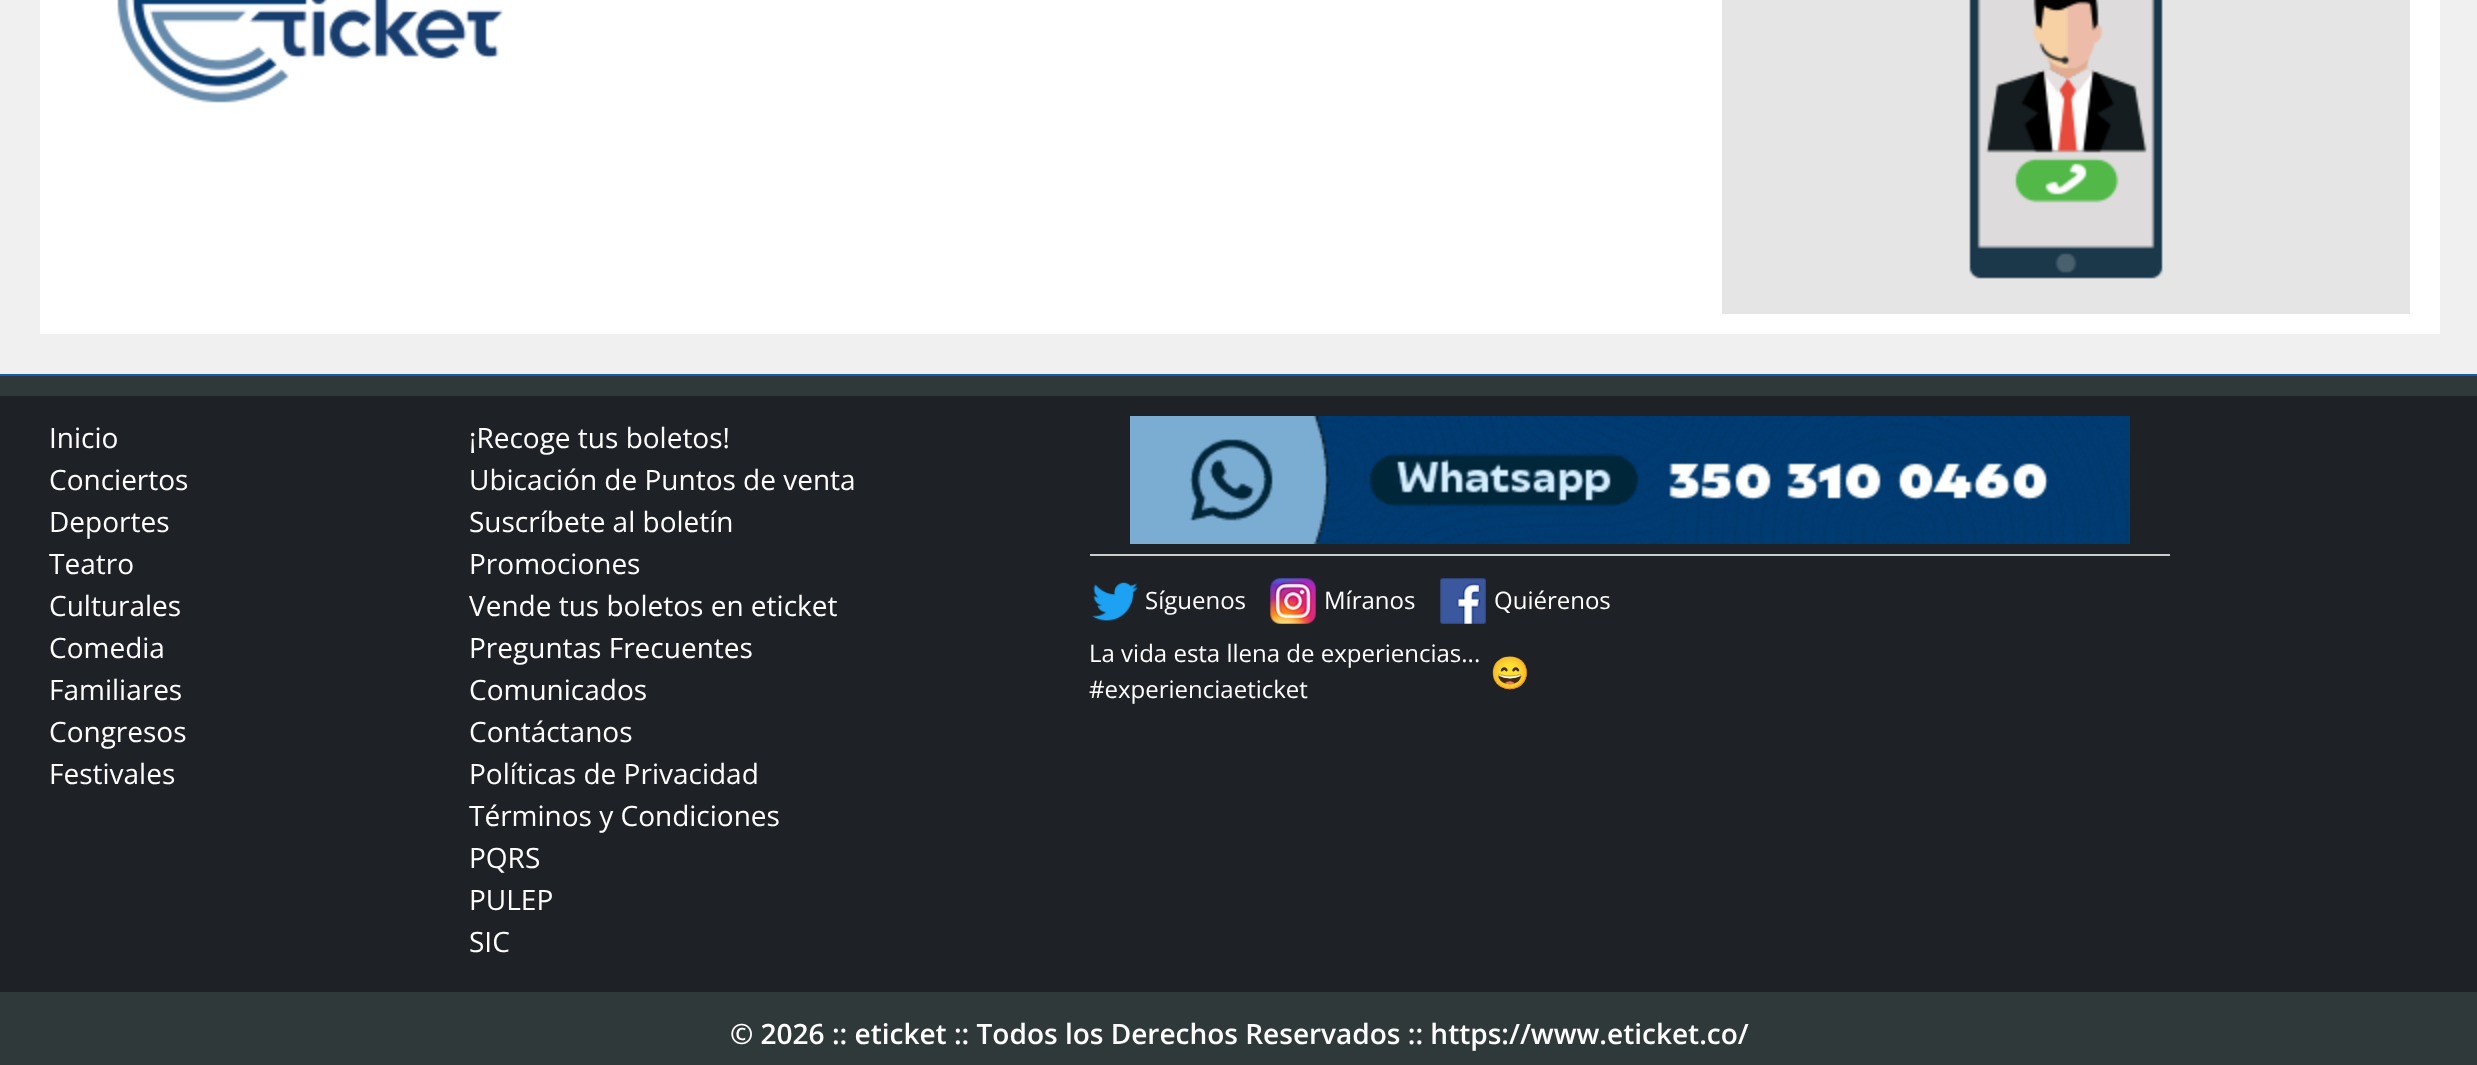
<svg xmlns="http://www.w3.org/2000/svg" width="2477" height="1065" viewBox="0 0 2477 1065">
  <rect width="100%" height="100%" fill="#f0f0f0"/>
  <rect x="40" y="0" width="2400" height="334" fill="#ffffff"/>
  <image x="117" y="0" width="386" height="103" href="img1.png"/>
  <rect x="1722" y="0" width="688" height="314" fill="#e5e5e5"/>
  <image x="1969" y="0" width="194" height="279" href="img2.png"/>
  <rect x="0" y="374" width="2477" height="2" fill="#125cb7"/>
  <rect x="0" y="376" width="2477" height="20" fill="#30393a"/>
  <rect x="0" y="396" width="2477" height="596" fill="#1e2126"/>
  <text x="49" y="448" font-family="Open Sans" font-size="28" fill="#ffffff">Inicio</text>
  <text x="49" y="490" font-family="Open Sans" font-size="28" fill="#ffffff">Conciertos</text>
  <text x="49" y="532" font-family="Open Sans" font-size="28" fill="#ffffff">Deportes</text>
  <text x="49" y="574" font-family="Open Sans" font-size="28" fill="#ffffff">Teatro</text>
  <text x="49" y="616" font-family="Open Sans" font-size="28" fill="#ffffff">Culturales</text>
  <text x="49" y="658" font-family="Open Sans" font-size="28" fill="#ffffff">Comedia</text>
  <text x="49" y="700" font-family="Open Sans" font-size="28" fill="#ffffff">Familiares</text>
  <text x="49" y="742" font-family="Open Sans" font-size="28" fill="#ffffff">Congresos</text>
  <text x="49" y="784" font-family="Open Sans" font-size="28" fill="#ffffff">Festivales</text>
  <text x="469" y="448" font-family="Open Sans" font-size="28" fill="#ffffff">¡Recoge tus boletos!</text>
  <text x="469" y="490" font-family="Open Sans" font-size="28" fill="#ffffff">Ubicación de Puntos de venta</text>
  <text x="469" y="532" font-family="Open Sans" font-size="28" fill="#ffffff">Suscríbete al boletín</text>
  <text x="469" y="574" font-family="Open Sans" font-size="28" fill="#ffffff">Promociones</text>
  <text x="469" y="616" font-family="Open Sans" font-size="28" fill="#ffffff">Vende tus boletos en eticket</text>
  <text x="469" y="658" font-family="Open Sans" font-size="28" fill="#ffffff">Preguntas Frecuentes</text>
  <text x="469" y="700" font-family="Open Sans" font-size="28" fill="#ffffff">Comunicados</text>
  <text x="469" y="742" font-family="Open Sans" font-size="28" fill="#ffffff">Contáctanos</text>
  <text x="469" y="784" font-family="Open Sans" font-size="28" fill="#ffffff">Políticas de Privacidad</text>
  <text x="469" y="826" font-family="Open Sans" font-size="28" fill="#ffffff">Términos y Condiciones</text>
  <text x="469" y="868" font-family="Open Sans" font-size="28" fill="#ffffff">PQRS</text>
  <text x="469" y="910" font-family="Open Sans" font-size="28" fill="#ffffff">PULEP</text>
  <text x="469" y="952" font-family="Open Sans" font-size="28" fill="#ffffff">SIC</text>
  <image x="1130" y="416" width="1000" height="128" href="img3.png"/>
  <rect x="1090" y="554" width="1080" height="2" fill="#cccccc"/>
  <image x="1092" y="582" width="46" height="39" href="img4.png"/>
  <text x="1145" y="609" font-family="Open Sans" font-size="24" fill="#ffffff">Síguenos</text>
  <image x="1270" y="578" width="46" height="46" href="img5.png"/>
  <text x="1324" y="609" font-family="Open Sans" font-size="24" fill="#ffffff">Míranos</text>
  <image x="1440" y="578" width="46" height="46" href="img6.png"/>
  <text x="1494" y="609" font-family="Open Sans" font-size="24" fill="#ffffff">Quiérenos</text>
  <text x="1089" y="662" font-family="Open Sans" font-size="24" fill="#ffffff">La vida esta llena de experiencias...</text>
  <text x="1089" y="698" font-family="Open Sans" font-size="24" fill="#ffffff">#experienciaeticket</text>
  <text x="1490" y="684" font-family="Noto Color Emoji" font-size="32" fill="#ffffff">😄</text>
  <rect x="0" y="992" width="2477" height="73" fill="#30393a"/>
  <text x="730" y="1044" font-family="Open Sans" font-size="28" font-weight="600" fill="#ffffff">© 2026 :: eticket :: Todos los Derechos Reservados :: https://www.eticket.co/</text>
</svg>
